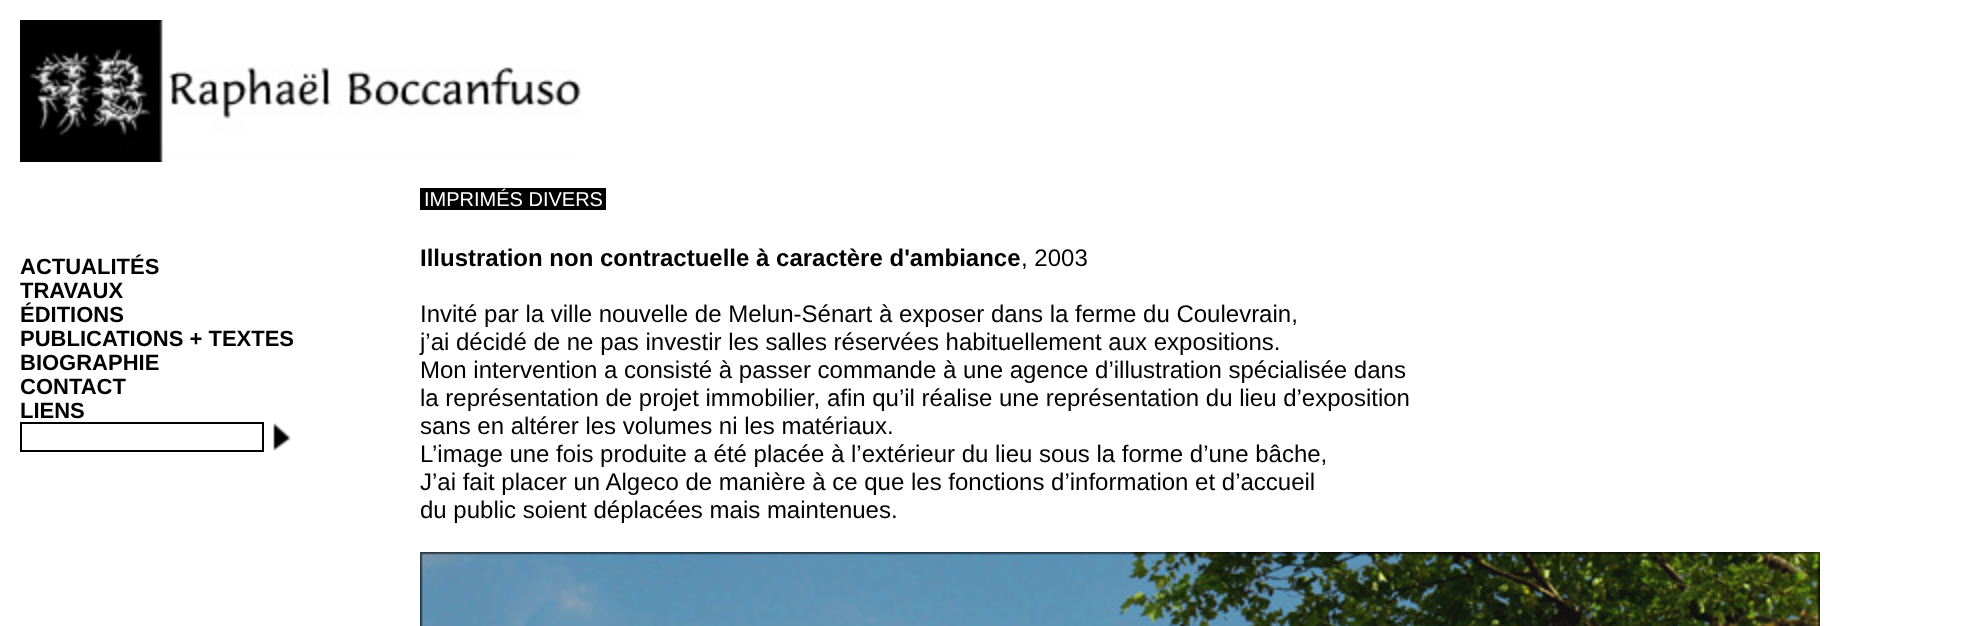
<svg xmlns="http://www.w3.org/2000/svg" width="1988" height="626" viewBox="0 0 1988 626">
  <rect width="100%" height="100%" fill="#ffffff"/>
  <image x="20" y="20" width="561" height="142" href="img1.png"/>
  <text x="20" y="274" font-family="Liberation Sans" font-size="22" font-weight="bold" fill="#000000">ACTUALITÉS</text>
  <text x="20" y="298" font-family="Liberation Sans" font-size="22" font-weight="bold" fill="#000000">TRAVAUX</text>
  <text x="20" y="322" font-family="Liberation Sans" font-size="22" font-weight="bold" fill="#000000">ÉDITIONS</text>
  <text x="20" y="346" font-family="Liberation Sans" font-size="22" font-weight="bold" fill="#000000">PUBLICATIONS + TEXTES</text>
  <text x="20" y="370" font-family="Liberation Sans" font-size="22" font-weight="bold" fill="#000000">BIOGRAPHIE</text>
  <text x="20" y="394" font-family="Liberation Sans" font-size="22" font-weight="bold" fill="#000000">CONTACT</text>
  <text x="20" y="418" font-family="Liberation Sans" font-size="22" font-weight="bold" fill="#000000">LIENS</text>
  <rect x="21" y="423" width="242" height="28" fill="none" stroke="#000000" stroke-width="2"/>
  <image x="272" y="423" width="19" height="28" href="img2.png"/>
  <rect x="420" y="188" width="186" height="22" fill="#000000"/>
  <text x="424" y="206" font-family="Liberation Sans" font-size="20" fill="#ffffff">IMPRIMÉS DIVERS</text>
  <text x="420" y="266" font-family="Liberation Sans" font-size="24" font-weight="bold" fill="#000000">Illustration non contractuelle à caractère d'ambiance</text>
  <text x="1021" y="266" font-family="Liberation Sans" font-size="24" fill="#000000">, 2003</text>
  <text x="420" y="322" font-family="Liberation Sans" font-size="24" fill="#000000">Invité par la ville nouvelle de Melun-Sénart à exposer dans la ferme du Coulevrain,</text>
  <text x="420" y="350" font-family="Liberation Sans" font-size="24" fill="#000000">j’ai décidé de ne pas investir les salles réservées habituellement aux expositions.</text>
  <text x="420" y="378" font-family="Liberation Sans" font-size="24" fill="#000000">Mon intervention a consisté à passer commande à une agence d’illustration spécialisée dans</text>
  <text x="420" y="406" font-family="Liberation Sans" font-size="24" fill="#000000">la représentation de projet immobilier, afin qu’il réalise une représentation du lieu d’exposition</text>
  <text x="420" y="434" font-family="Liberation Sans" font-size="24" fill="#000000">sans en altérer les volumes ni les matériaux.</text>
  <text x="420" y="462" font-family="Liberation Sans" font-size="24" fill="#000000">L’image une fois produite a été placée à l’extérieur du lieu sous la forme d’une bâche,</text>
  <text x="420" y="490" font-family="Liberation Sans" font-size="24" fill="#000000">J’ai fait placer un Algeco de manière à ce que les fonctions d’information et d’accueil</text>
  <text x="420" y="518" font-family="Liberation Sans" font-size="24" fill="#000000">du public soient déplacées mais maintenues.</text>
  <image x="420" y="552" width="1400" height="74" href="img3.png"/>
</svg>
